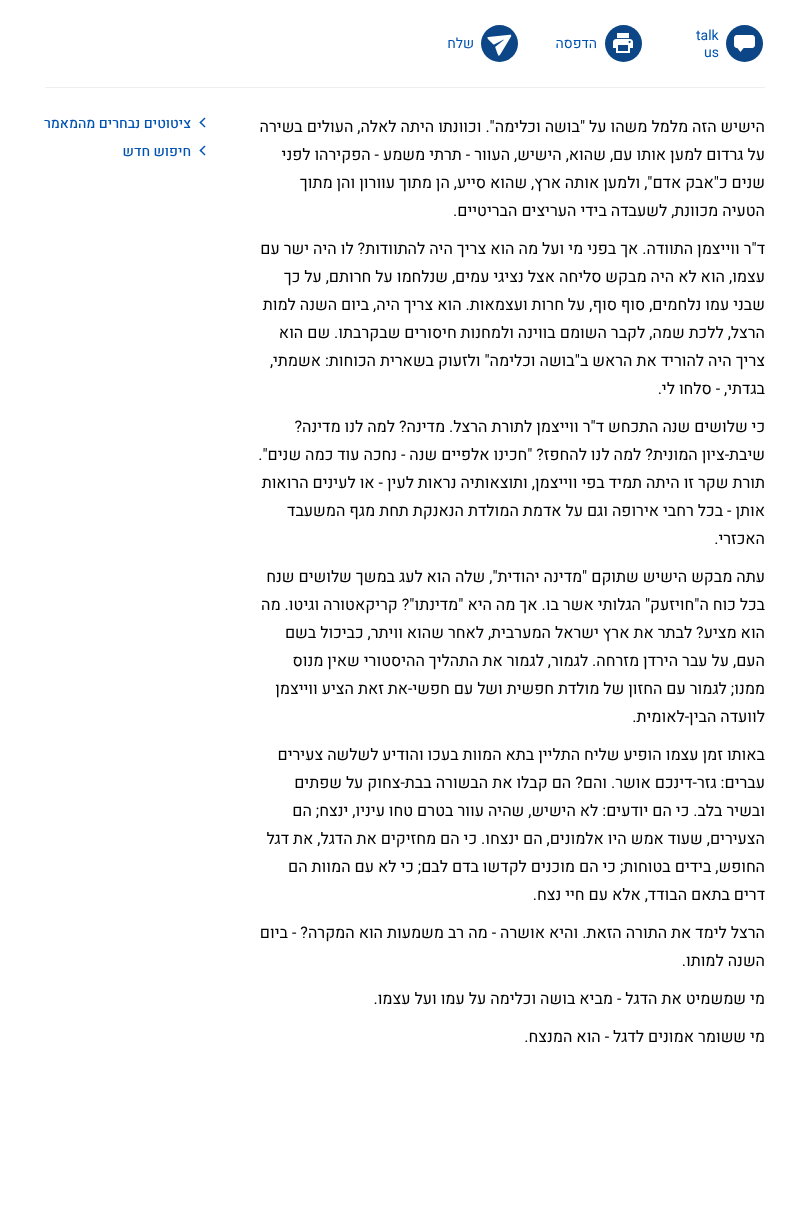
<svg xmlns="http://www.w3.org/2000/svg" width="810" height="1224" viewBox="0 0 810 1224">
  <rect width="100%" height="100%" fill="#ffffff"/>
  <circle cx="744.5" cy="43.5" r="18.5" fill="#0c4686"/>
  <image x="734" y="35" width="21" height="17" href="img1.png"/>
  <text x="696" y="40" font-family="Heebo" font-size="14" fill="#0053b3">talk</text>
  <text x="704" y="57" font-family="Heebo" font-size="14" fill="#0053b3">us</text>
  <circle cx="623.5" cy="43.5" r="18.5" fill="#0c4686"/>
  <image x="613" y="33" width="20" height="20" href="img2.png"/>
  <text x="597" y="48" font-family="Heebo" font-size="14" direction="rtl" fill="#0053b3">הדפסה</text>
  <circle cx="499.5" cy="43.5" r="18.5" fill="#0c4686"/>
  <image x="487" y="34" width="25" height="22" href="img3.png"/>
  <text x="474" y="48" font-family="Heebo" font-size="14" direction="rtl" fill="#0053b3">שלח</text>
  <rect x="45" y="87" width="720" height="1" fill="#eeeeee"/>
  <text x="765" y="132" font-family="Heebo" font-size="16" direction="rtl" fill="#000000">הישיש הזה מלמל משהו על "בושה וכלימה". וכוונתו היתה לאלה, העולים בשירה</text>
  <text x="765" y="160" font-family="Heebo" font-size="16" direction="rtl" fill="#000000">על גרדום למען אותו עם, שהוא, הישיש, העוור - תרתי משמע - הפקירהו לפני</text>
  <text x="765" y="188" font-family="Heebo" font-size="16" direction="rtl" fill="#000000">שנים כ"אבק אדם", ולמען אותה ארץ, שהוא סייע, הן מתוך עוורון והן מתוך</text>
  <text x="765" y="216" font-family="Heebo" font-size="16" direction="rtl" fill="#000000">הטעיה מכוונת, לשעבדה בידי העריצים הבריטיים.</text>
  <text x="765" y="254" font-family="Heebo" font-size="16" direction="rtl" fill="#000000">ד"ר ווייצמן התוודה. אך בפני מי ועל מה הוא צריך היה להתוודות? לו היה ישר עם</text>
  <text x="765" y="282" font-family="Heebo" font-size="16" direction="rtl" fill="#000000">עצמו, הוא לא היה מבקש סליחה אצל נציגי עמים, שנלחמו על חרותם, על כך</text>
  <text x="765" y="310" font-family="Heebo" font-size="16" direction="rtl" fill="#000000">שבני עמו נלחמים, סוף סוף, על חרות ועצמאות. הוא צריך היה, ביום השנה למות</text>
  <text x="765" y="338" font-family="Heebo" font-size="16" direction="rtl" fill="#000000">הרצל, ללכת שמה, לקבר השומם בווינה ולמחנות חיסורים שבקרבתו. שם הוא</text>
  <text x="765" y="366" font-family="Heebo" font-size="16" direction="rtl" fill="#000000">צריך היה להוריד את הראש ב"בושה וכלימה" ולזעוק בשארית הכוחות: אשמתי,</text>
  <text x="765" y="394" font-family="Heebo" font-size="16" direction="rtl" fill="#000000">בגדתי, - סלחו לי.</text>
  <text x="765" y="432" font-family="Heebo" font-size="16" direction="rtl" fill="#000000">כי שלושים שנה התכחש ד"ר ווייצמן לתורת הרצל. מדינה? למה לנו מדינה?</text>
  <text x="765" y="460" font-family="Heebo" font-size="16" direction="rtl" fill="#000000">שיבת-ציון המונית? למה לנו להחפז? "חכינו אלפיים שנה - נחכה עוד כמה שנים".</text>
  <text x="765" y="488" font-family="Heebo" font-size="16" direction="rtl" fill="#000000">תורת שקר זו היתה תמיד בפי ווייצמן, ותוצאותיה נראות לעין - או לעינים הרואות</text>
  <text x="765" y="516" font-family="Heebo" font-size="16" direction="rtl" fill="#000000">אותן - בכל רחבי אירופה וגם על אדמת המולדת הנאנקת תחת מגף המשעבד</text>
  <text x="765" y="544" font-family="Heebo" font-size="16" direction="rtl" fill="#000000">האכזרי.</text>
  <text x="765" y="582" font-family="Heebo" font-size="16" direction="rtl" fill="#000000">עתה מבקש הישיש שתוקם "מדינה יהודית", שלה הוא לעג במשך שלושים שנח</text>
  <text x="765" y="610" font-family="Heebo" font-size="16" direction="rtl" fill="#000000">בכל כוח ה"חויזעק" הגלותי אשר בו. אך מה היא "מדינתו"? קריקאטורה וגיטו. מה</text>
  <text x="765" y="638" font-family="Heebo" font-size="16" direction="rtl" fill="#000000">הוא מציע? לבתר את ארץ ישראל המערבית, לאחר שהוא וויתר, כביכול בשם</text>
  <text x="765" y="666" font-family="Heebo" font-size="16" direction="rtl" fill="#000000">העם, על עבר הירדן מזרחה. לגמור, לגמור את התהליך ההיסטורי שאין מנוס</text>
  <text x="765" y="694" font-family="Heebo" font-size="16" direction="rtl" fill="#000000">ממנו; לגמור עם החזון של מולדת חפשית ושל עם חפשי-את זאת הציע ווייצמן</text>
  <text x="765" y="722" font-family="Heebo" font-size="16" direction="rtl" fill="#000000">לוועדה הבין-לאומית.</text>
  <text x="765" y="760" font-family="Heebo" font-size="16" direction="rtl" fill="#000000">באותו זמן עצמו הופיע שליח התליין בתא המוות בעכו והודיע לשלשה צעירים</text>
  <text x="765" y="788" font-family="Heebo" font-size="16" direction="rtl" fill="#000000">עברים: גזר-דינכם אושר. והם? הם קבלו את הבשורה בבת-צחוק על שפתים</text>
  <text x="765" y="816" font-family="Heebo" font-size="16" direction="rtl" fill="#000000">ובשיר בלב. כי הם יודעים: לא הישיש, שהיה עוור בטרם טחו עיניו, ינצח; הם</text>
  <text x="765" y="844" font-family="Heebo" font-size="16" direction="rtl" fill="#000000">הצעירים, שעוד אמש היו אלמונים, הם ינצחו. כי הם מחזיקים את הדגל, את דגל</text>
  <text x="765" y="872" font-family="Heebo" font-size="16" direction="rtl" fill="#000000">החופש, בידים בטוחות; כי הם מוכנים לקדשו בדם לבם; כי לא עם המוות הם</text>
  <text x="765" y="900" font-family="Heebo" font-size="16" direction="rtl" fill="#000000">דרים בתאם הבודד, אלא עם חיי נצח.</text>
  <text x="765" y="938" font-family="Heebo" font-size="16" direction="rtl" fill="#000000">הרצל לימד את התורה הזאת. והיא אושרה - מה רב משמעות הוא המקרה? - ביום</text>
  <text x="765" y="966" font-family="Heebo" font-size="16" direction="rtl" fill="#000000">השנה למותו.</text>
  <text x="765" y="1004" font-family="Heebo" font-size="16" direction="rtl" fill="#000000">מי שמשמיט את הדגל - מביא בושה וכלימה על עמו ועל עצמו.</text>
  <text x="765" y="1042" font-family="Heebo" font-size="16" direction="rtl" fill="#000000">מי ששומר אמונים לדגל - הוא המנצח.</text>
  <path d="M204.5 117.5L205.5 118.5L200.5 123.5L199.5 122.5Z" fill="#0053b3"/>
  <text x="191" y="128" font-family="Heebo" font-size="14" font-weight="500" direction="rtl" fill="#0053b3">ציטוטים נבחרים מהמאמר</text>
  <path d="M199.5 122.5L200.5 121.5L205.5 126.5L204.5 127.5Z" fill="#0053b3"/>
  <path d="M204.5 145.5L205.5 146.5L200.5 151.5L199.5 150.5Z" fill="#0053b3"/>
  <text x="191" y="156" font-family="Heebo" font-size="14" font-weight="500" direction="rtl" fill="#0053b3">חיפוש חדש</text>
  <path d="M199.5 150.5L200.5 149.5L205.5 154.5L204.5 155.5Z" fill="#0053b3"/>
</svg>
